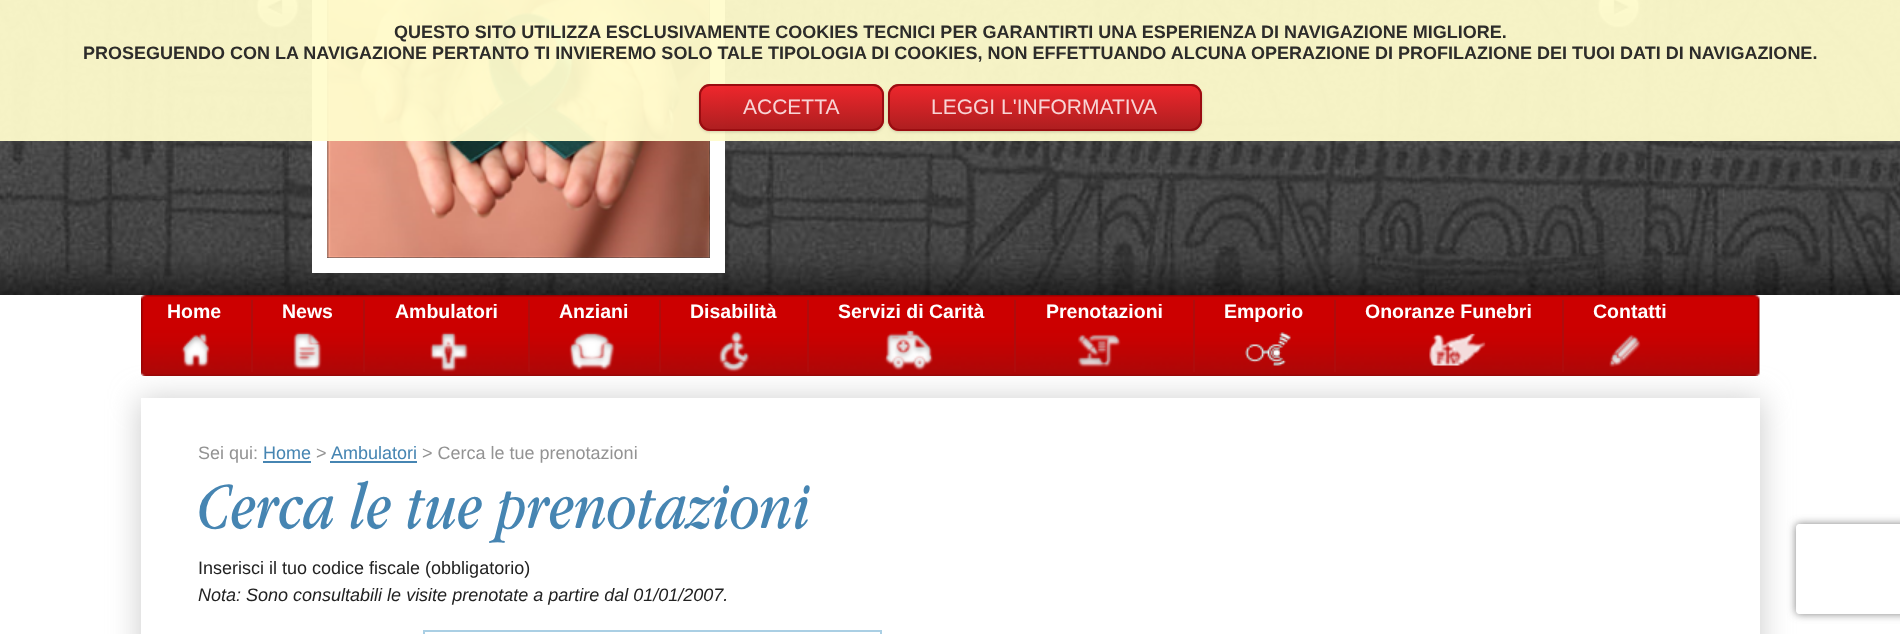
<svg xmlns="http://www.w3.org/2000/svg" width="1900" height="634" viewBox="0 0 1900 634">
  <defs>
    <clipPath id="clip1"><path d="M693 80H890V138H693ZM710 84H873C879 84 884 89 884 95V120C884 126 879 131 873 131H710C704 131 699 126 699 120V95C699 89 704 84 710 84Z" clip-rule="evenodd"/></clipPath>
    <filter id="blur1" x="-50%" y="-200%" width="200%" height="500%"><feGaussianBlur stdDeviation="1.5"/></filter>
    <clipPath id="clip2"><rect x="699" y="84" width="185" height="47" rx="11"/></clipPath>
    <linearGradient id="g1" gradientUnits="userSpaceOnUse" x1="701" y1="42" x2="701" y2="86"><stop offset="0" stop-color="#ed1c24" stop-opacity="0.95"/><stop offset="1" stop-color="#aa1317" stop-opacity="0.95"/></linearGradient>
    <linearGradient id="g2" gradientUnits="userSpaceOnUse" x1="701" y1="86" x2="701" y2="129"><stop offset="0" stop-color="#ed1c24" stop-opacity="0.95"/><stop offset="1" stop-color="#aa1317" stop-opacity="0.95"/></linearGradient>
    <linearGradient id="g3" gradientUnits="userSpaceOnUse" x1="701" y1="129" x2="701" y2="173"><stop offset="0" stop-color="#ed1c24" stop-opacity="0.95"/><stop offset="1" stop-color="#aa1317" stop-opacity="0.95"/></linearGradient>
    <clipPath id="clip3"><path d="M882 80H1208V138H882ZM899 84H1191C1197 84 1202 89 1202 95V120C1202 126 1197 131 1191 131H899C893 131 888 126 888 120V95C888 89 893 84 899 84Z" clip-rule="evenodd"/></clipPath>
    <clipPath id="clip4"><rect x="888" y="84" width="314" height="47" rx="11"/></clipPath>
    <linearGradient id="g4" gradientUnits="userSpaceOnUse" x1="890" y1="42" x2="890" y2="86"><stop offset="0" stop-color="#ed272c"/><stop offset="1" stop-color="#ae1e20"/></linearGradient>
    <linearGradient id="g5" gradientUnits="userSpaceOnUse" x1="890" y1="86" x2="890" y2="129"><stop offset="0" stop-color="#ed1c24" stop-opacity="0.95"/><stop offset="1" stop-color="#aa1317" stop-opacity="0.95"/></linearGradient>
    <linearGradient id="g6" gradientUnits="userSpaceOnUse" x1="890" y1="129" x2="890" y2="173"><stop offset="0" stop-color="#ed1c24" stop-opacity="0.95"/><stop offset="1" stop-color="#aa1317" stop-opacity="0.95"/></linearGradient>
    <clipPath id="clip5"><path d="M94 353H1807V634H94ZM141 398H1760V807H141Z" clip-rule="evenodd"/></clipPath>
    <filter id="blur2" x="-50%" y="-200%" width="200%" height="500%"><feGaussianBlur stdDeviation="15"/></filter>
    <clipPath id="clip6"><path d="M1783 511H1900V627H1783ZM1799 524H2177C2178.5 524 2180 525.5 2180 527V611C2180 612.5 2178.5 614 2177 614H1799C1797.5 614 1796 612.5 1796 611V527C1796 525.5 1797.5 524 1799 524Z" clip-rule="evenodd"/></clipPath>
    <filter id="blur3" x="-50%" y="-200%" width="200%" height="500%"><feGaussianBlur stdDeviation="4"/></filter>
  </defs>
  <rect width="100%" height="100%" fill="#ffffff"/>
  <image x="0" y="0" width="1900" height="295" href="img1.png"/>
  <image x="256" y="0" width="43" height="29" href="img2.png"/>
  <rect x="319.5" y="-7.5" width="398" height="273" fill="none" stroke="#ffffff" stroke-width="15"/>
  <image x="327" y="0" width="383" height="258" href="img3.png"/>
  <image x="1597" y="0" width="43" height="28" href="img4.png"/>
  <rect x="0" y="0" width="1900" height="141" fill="#fffccc" fill-opacity="0.95"/>
  <text x="394" y="38" font-family="Liberation Sans" font-size="18" font-weight="bold" fill="#2d2c2a">QUESTO SITO UTILIZZA ESCLUSIVAMENTE COOKIES TECNICI PER GARANTIRTI UNA ESPERIENZA DI NAVIGAZIONE MIGLIORE.</text>
  <text x="83" y="59" font-family="Liberation Sans" font-size="18" font-weight="bold" fill="#2d2c2a">PROSEGUENDO CON LA NAVIGAZIONE PERTANTO TI INVIEREMO SOLO TALE TIPOLOGIA DI COOKIES, NON EFFETTUANDO ALCUNA OPERAZIONE DI PROFILAZIONE DEI TUOI DATI DI NAVIGAZIONE.</text>
  <g clip-path="url(#clip1)">
    <rect x="699" y="86" width="185" height="46" rx="11" fill="#000000" fill-opacity="0.19" filter="url(#blur1)"/>
  </g>
  <g clip-path="url(#clip2)">
    <rect x="699" y="84" width="185" height="2" fill="url(#g1)"/>
    <rect x="699" y="86" width="185" height="43" fill="url(#g2)"/>
    <rect x="699" y="129" width="185" height="2" fill="url(#g3)"/>
  </g>
  <rect x="700" y="85" width="183" height="45" rx="10" fill="none" stroke="#980c10" stroke-opacity="0.95" stroke-width="2"/>
  <text x="743" y="114" font-family="Liberation Sans" font-size="21" fill="#f8d4d5">ACCETTA</text>
  <g clip-path="url(#clip3)">
    <rect x="888" y="86" width="314" height="46" rx="11" fill="#000000" fill-opacity="0.19" filter="url(#blur1)"/>
  </g>
  <g clip-path="url(#clip4)">
    <rect x="888" y="84" width="314" height="2" fill="url(#g4)"/>
    <rect x="888" y="86" width="314" height="43" fill="url(#g5)"/>
    <rect x="888" y="129" width="314" height="2" fill="url(#g6)"/>
  </g>
  <rect x="889" y="85" width="312" height="45" rx="10" fill="none" stroke="#980c10" stroke-opacity="0.95" stroke-width="2"/>
  <text x="931" y="114" font-family="Liberation Sans" font-size="21" fill="#f8d4d5">LEGGI L'INFORMATIVA</text>
  <g clip-path="url(#clip5)">
    <rect x="140" y="399" width="1621" height="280" fill="#cccccc" filter="url(#blur2)"/>
  </g>
  <image x="141" y="295" width="1619" height="81" href="img5.png"/>
  <image x="181" y="332" width="29" height="36" href="img6.png"/>
  <rect x="251" y="300" width="2" height="72" fill="#af0c0c"/>
  <text x="167" y="318" font-family="Liberation Sans" font-size="19.5" font-weight="bold" fill="#ffffff">Home</text>
  <image x="293" y="332" width="29" height="38" href="img7.png"/>
  <rect x="363" y="300" width="2" height="72" fill="#af0c0c"/>
  <text x="282" y="318" font-family="Liberation Sans" font-size="19.5" font-weight="bold" fill="#ffffff">News</text>
  <image x="430" y="332" width="39" height="40" href="img8.png"/>
  <rect x="528" y="300" width="2" height="72" fill="#af0c0c"/>
  <text x="395" y="318" font-family="Liberation Sans" font-size="19.5" font-weight="bold" fill="#ffffff">Ambulatori</text>
  <image x="569" y="332" width="46" height="38" href="img9.png"/>
  <rect x="659" y="300" width="2" height="72" fill="#af0c0c"/>
  <text x="559" y="318" font-family="Liberation Sans" font-size="19.5" font-weight="bold" fill="#ffffff">Anziani</text>
  <image x="718" y="331" width="32" height="41" href="img10.png"/>
  <rect x="807" y="300" width="2" height="72" fill="#af0c0c"/>
  <text x="690" y="318" font-family="Liberation Sans" font-size="19.5" font-weight="bold" fill="#ffffff">Disabilità</text>
  <image x="884" y="330" width="49" height="41" href="img11.png"/>
  <rect x="1014" y="300" width="2" height="72" fill="#af0c0c"/>
  <text x="838" y="318" font-family="Liberation Sans" font-size="19.5" font-weight="bold" fill="#ffffff">Servizi di Carità</text>
  <image x="1077" y="334" width="44" height="34" href="img12.png"/>
  <rect x="1193" y="300" width="2" height="72" fill="#af0c0c"/>
  <text x="1046" y="318" font-family="Liberation Sans" font-size="19.5" font-weight="bold" fill="#ffffff">Prenotazioni</text>
  <image x="1244" y="332" width="47" height="34" href="img13.png"/>
  <rect x="1334" y="300" width="2" height="72" fill="#af0c0c"/>
  <text x="1224" y="318" font-family="Liberation Sans" font-size="19.5" font-weight="bold" fill="#ffffff">Emporio</text>
  <image x="1429" y="333" width="57" height="33" href="img14.png"/>
  <rect x="1562" y="300" width="2" height="72" fill="#af0c0c"/>
  <text x="1365" y="318" font-family="Liberation Sans" font-size="19.5" font-weight="bold" fill="#ffffff">Onoranze Funebri</text>
  <image x="1609" y="334" width="32" height="33" href="img15.png"/>
  <text x="1593" y="318" font-family="Liberation Sans" font-size="19.5" font-weight="bold" fill="#ffffff">Contatti</text>
  <text x="198" y="459" font-family="Liberation Sans" font-size="18" fill="#939393">Sei qui:</text>
  <text x="263" y="459" font-family="Liberation Sans" font-size="18" fill="#4685b2">Home</text>
  <rect x="263" y="461" width="48" height="2" fill="#4685b2"/>
  <text x="316" y="459" font-family="Liberation Sans" font-size="18" fill="#939393">&gt;</text>
  <text x="331" y="459" font-family="Liberation Sans" font-size="18" fill="#4685b2">Ambulatori</text>
  <rect x="330" y="461" width="87" height="2" fill="#4685b2"/>
  <text x="422" y="459" font-family="Liberation Sans" font-size="18" fill="#939393">&gt; Cerca le tue prenotazioni</text>
  <text x="198" y="528" font-family="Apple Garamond" font-size="67.5" font-style="italic" fill="#4685b2">Cerca le tue prenotazioni</text>
  <text x="198" y="574" font-family="Liberation Sans" font-size="18" fill="#222222">Inserisci il tuo codice fiscale (obbligatorio)</text>
  <text x="198" y="601" font-family="Liberation Sans" font-size="18" font-style="italic" fill="#222222">Nota: Sono consultabili le visite prenotate a partire dal 01/01/2007.</text>
  <rect x="424" y="631" width="457" height="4" fill="none" stroke="#aacfe4" stroke-width="2"/>
  <g clip-path="url(#clip6)">
    <rect x="1796" y="524" width="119" height="90" rx="3" fill="#808080" filter="url(#blur3)"/>
  </g>
</svg>
